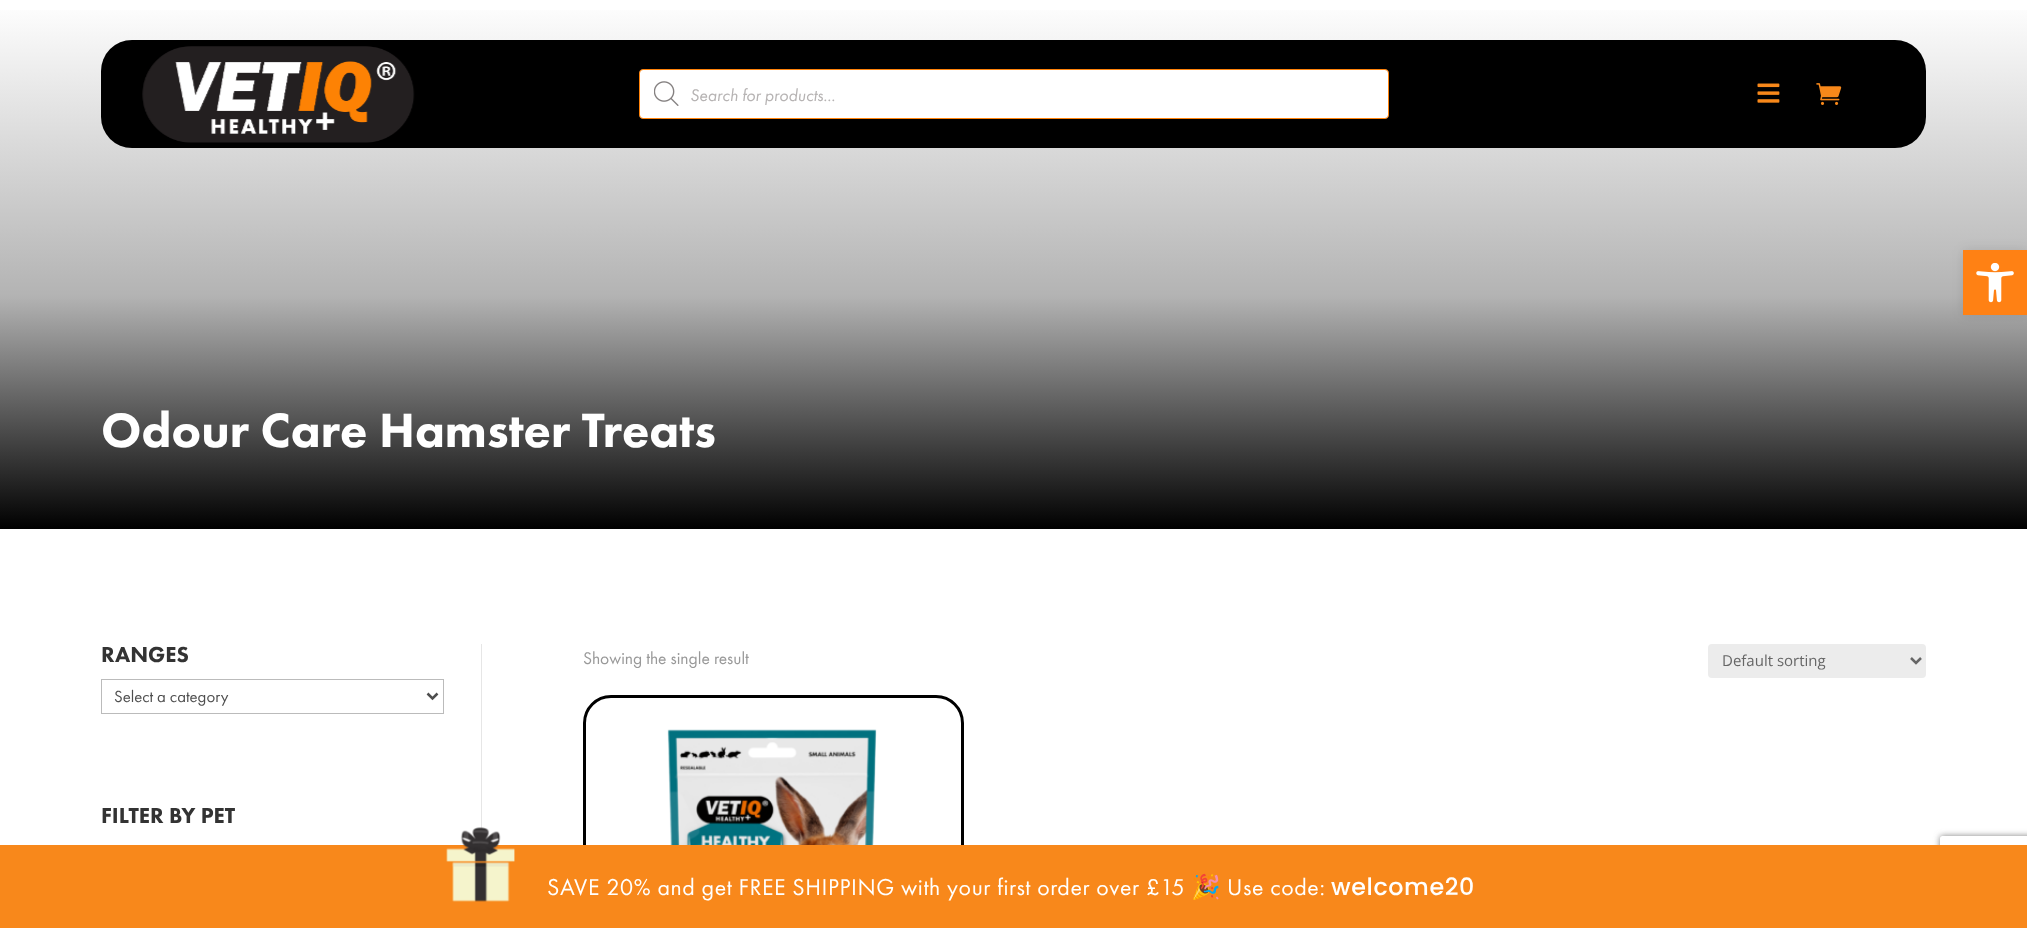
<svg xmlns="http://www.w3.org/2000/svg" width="2027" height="928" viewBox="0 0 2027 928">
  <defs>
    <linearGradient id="g1" gradientUnits="userSpaceOnUse" x1="1014" y1="0" x2="1014" y2="529"><stop offset="0" stop-color="#ffffff"/><stop offset="0.56" stop-color="#b3b3b3"/><stop offset="1" stop-color="#000000"/></linearGradient>
    <filter id="blur1" x="-50%" y="-200%" width="200%" height="500%"><feGaussianBlur stdDeviation="6"/></filter>
    <clipPath id="clip1"><path d="M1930 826H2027V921H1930ZM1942.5 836H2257.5C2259 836 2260 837 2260 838.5V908.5C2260 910 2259 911 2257.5 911H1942.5C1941 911 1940 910 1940 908.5V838.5C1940 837 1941 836 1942.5 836Z" clip-rule="evenodd"/></clipPath>
    <filter id="blur2" x="-50%" y="-200%" width="200%" height="500%"><feGaussianBlur stdDeviation="3"/></filter>
  </defs>
  <rect width="100%" height="100%" fill="#ffffff"/>
  <rect x="0" y="10" width="2027" height="519" fill="url(#g1)"/>
  <rect x="101" y="40" width="1825" height="108" rx="31" fill="#000000"/>
  <image x="142" y="46" width="273" height="97" href="img1.png"/>
  <rect x="639.5" y="69.5" width="749" height="49" rx="3.5" fill="#ffffff" stroke="#ff830b"/>
  <image x="654" y="81" width="25" height="25" href="img2.png"/>
  <text x="690" y="101" font-family="Futura PT" font-size="17.5" font-style="italic" fill="#b6b3b3">Search for products...</text>
  <image x="1757" y="83" width="23" height="20" href="img3.png"/>
  <image x="1816" y="83" width="26" height="22" href="img4.png"/>
  <text x="101" y="447" font-family="Futura PT" font-size="50" font-weight="900" fill="#ffffff">Odour Care Hamster Treats</text>
  <rect x="481" y="644" width="1" height="185" fill="#e6e6e6"/>
  <text x="101" y="662" font-family="Futura PT" font-size="22.5" font-weight="900" fill="#333333">RANGES</text>
  <rect x="101.5" y="679.5" width="342" height="34" fill="none" stroke="#bbbbbb"/>
  <path d="M427.5 693.5L432.5 698.5L437.5 693.5" fill="none" stroke="#4e4e4e" stroke-width="2.5"/>
  <text x="114" y="702" font-family="Futura PT" font-size="16.75" fill="#4e4e4e">Select a category</text>
  <text x="101" y="823" font-family="Futura PT" font-size="22.5" font-weight="900" fill="#333333">FILTER BY PET</text>
  <text x="583" y="664" font-family="Futura PT" font-size="17.5" fill="#999999">Showing the single result</text>
  <rect x="1708" y="644" width="218" height="34" rx="4" fill="#ececec"/>
  <path d="M1911 658L1916 663L1921 658" fill="none" stroke="#666666" stroke-width="2.5"/>
  <text x="1722" y="666" font-family="Open Sans" font-size="15" fill="#666666">Default sorting</text>
  <rect x="584.5" y="696.5" width="378" height="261" rx="26.5" fill="none" stroke="#000000" stroke-width="3"/>
  <image x="667" y="729" width="210" height="116" href="img5.png"/>
  <rect x="1963" y="250" width="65" height="65" fill="#000000" fill-opacity="0.1" filter="url(#blur1)"/>
  <rect x="1963" y="250" width="64" height="65" fill="#ff8114"/>
  <image x="1976" y="263" width="38" height="40" href="img6.png"/>
  <g clip-path="url(#clip1)">
    <rect x="1940" y="836" width="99" height="75" rx="2.5" fill="#808080" filter="url(#blur2)"/>
  </g>
  <rect x="0" y="845" width="2027" height="83" fill="#f8881b"/>
  <image x="446" y="827" width="69" height="75" href="img7.png"/>
  <text x="547" y="895" font-family="Futura PT" font-size="23.8" letter-spacing="0.6" fill="#ffffff">SAVE 20% and get FREE SHIPPING with your first order over £15</text>
  <text x="1191" y="895" font-family="Noto Color Emoji" font-size="23.8" letter-spacing="0.6" fill="#ffffff">🎉</text>
  <text x="1227" y="895" font-family="Futura PT" font-size="23.8" letter-spacing="0.6" fill="#ffffff">Use code:</text>
  <text x="1331" y="895" font-family="Poppins" font-size="23.8" font-weight="500" letter-spacing="0.6" fill="#ffffff">welcome20</text>
</svg>
